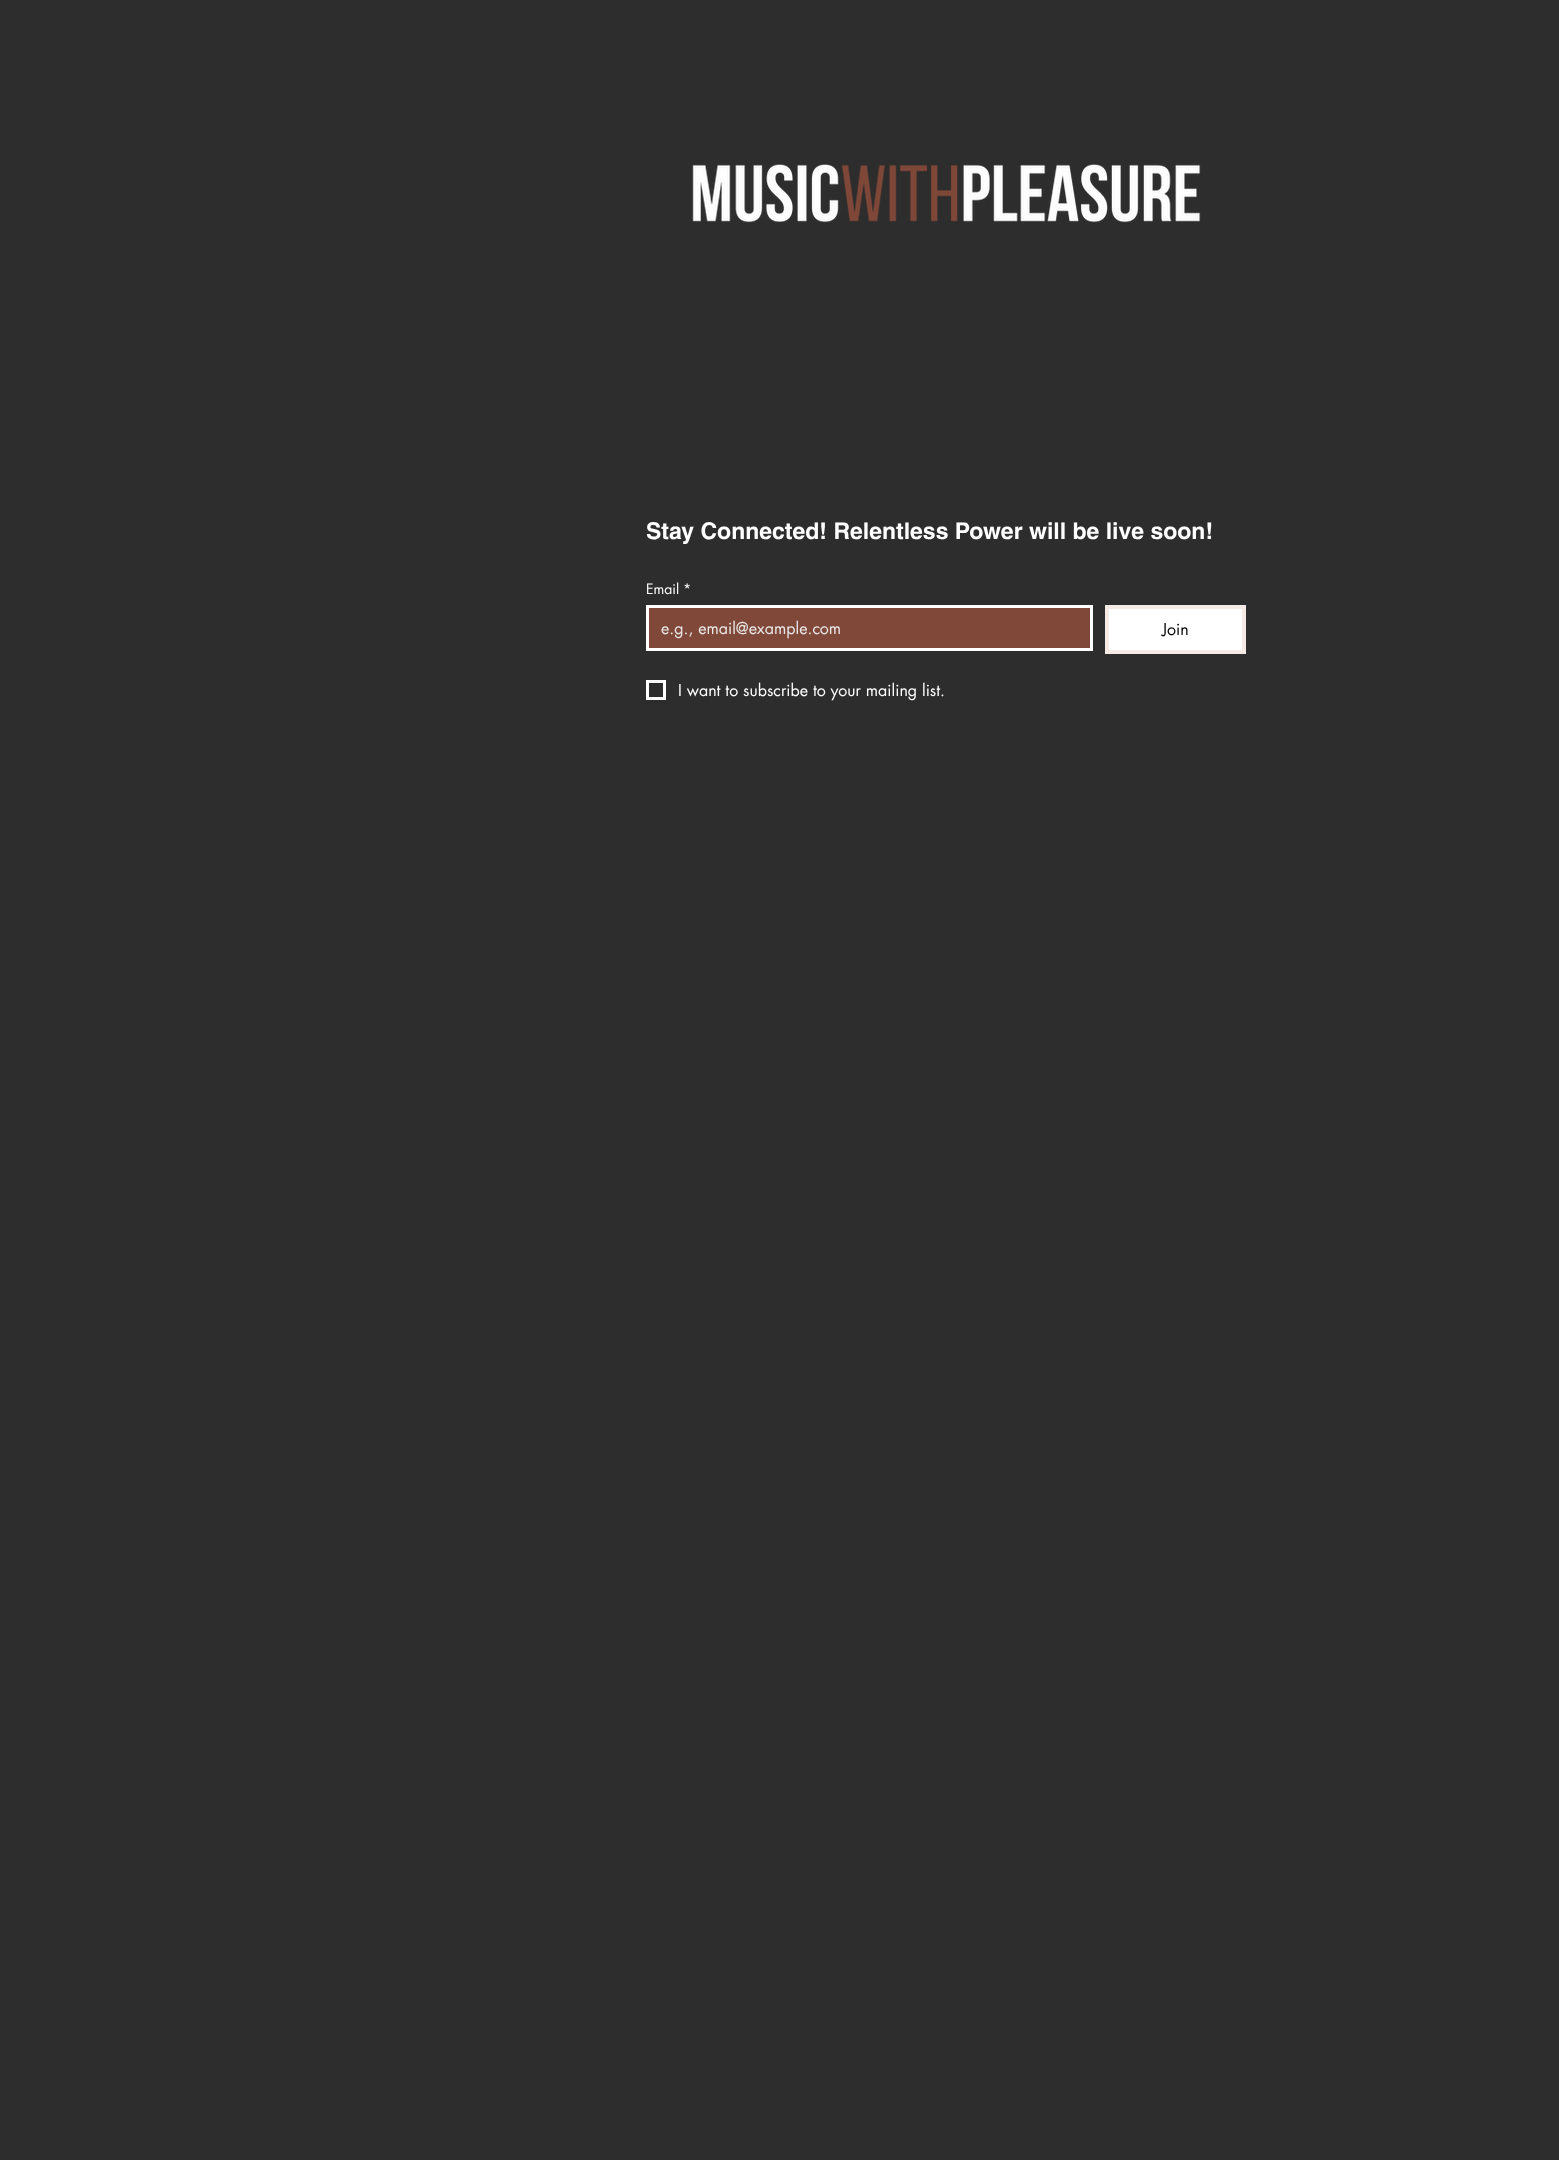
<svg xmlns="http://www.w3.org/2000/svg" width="1559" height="2160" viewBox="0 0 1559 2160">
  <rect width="100%" height="100%" fill="#2d2d2d"/>
  <image x="692" y="164" width="509" height="59" href="img1.png"/>
  <text x="646" y="539" font-family="helvetica" font-size="23" font-weight="bold" fill="#ffffff">Stay Connected! Relentless Power will be live soon!</text>
  <text x="646" y="594" font-family="futura" font-size="14" fill="#ffffff">Email</text>
  <text x="683" y="594" font-family="futura" font-size="14" fill="#ffffff">*</text>
  <rect x="647.5" y="606.5" width="444" height="43" fill="#804839" stroke="#ffffff" stroke-width="3"/>
  <text x="661" y="634" font-family="futura" font-size="16" fill="#e8e8e8">e.g., email@example.com</text>
  <rect x="1107" y="607" width="137" height="45" fill="#ffffff" stroke="#f6ebe4" stroke-width="4"/>
  <text x="1162" y="635" font-family="futura" font-size="16" fill="#000000">Join</text>
  <rect x="647.5" y="681.5" width="17" height="17" fill="none" stroke="#ffffff" stroke-width="3"/>
  <text x="678" y="696" font-family="futura" font-size="16" fill="#ffffff">I want to subscribe to your mailing list.</text>
</svg>
